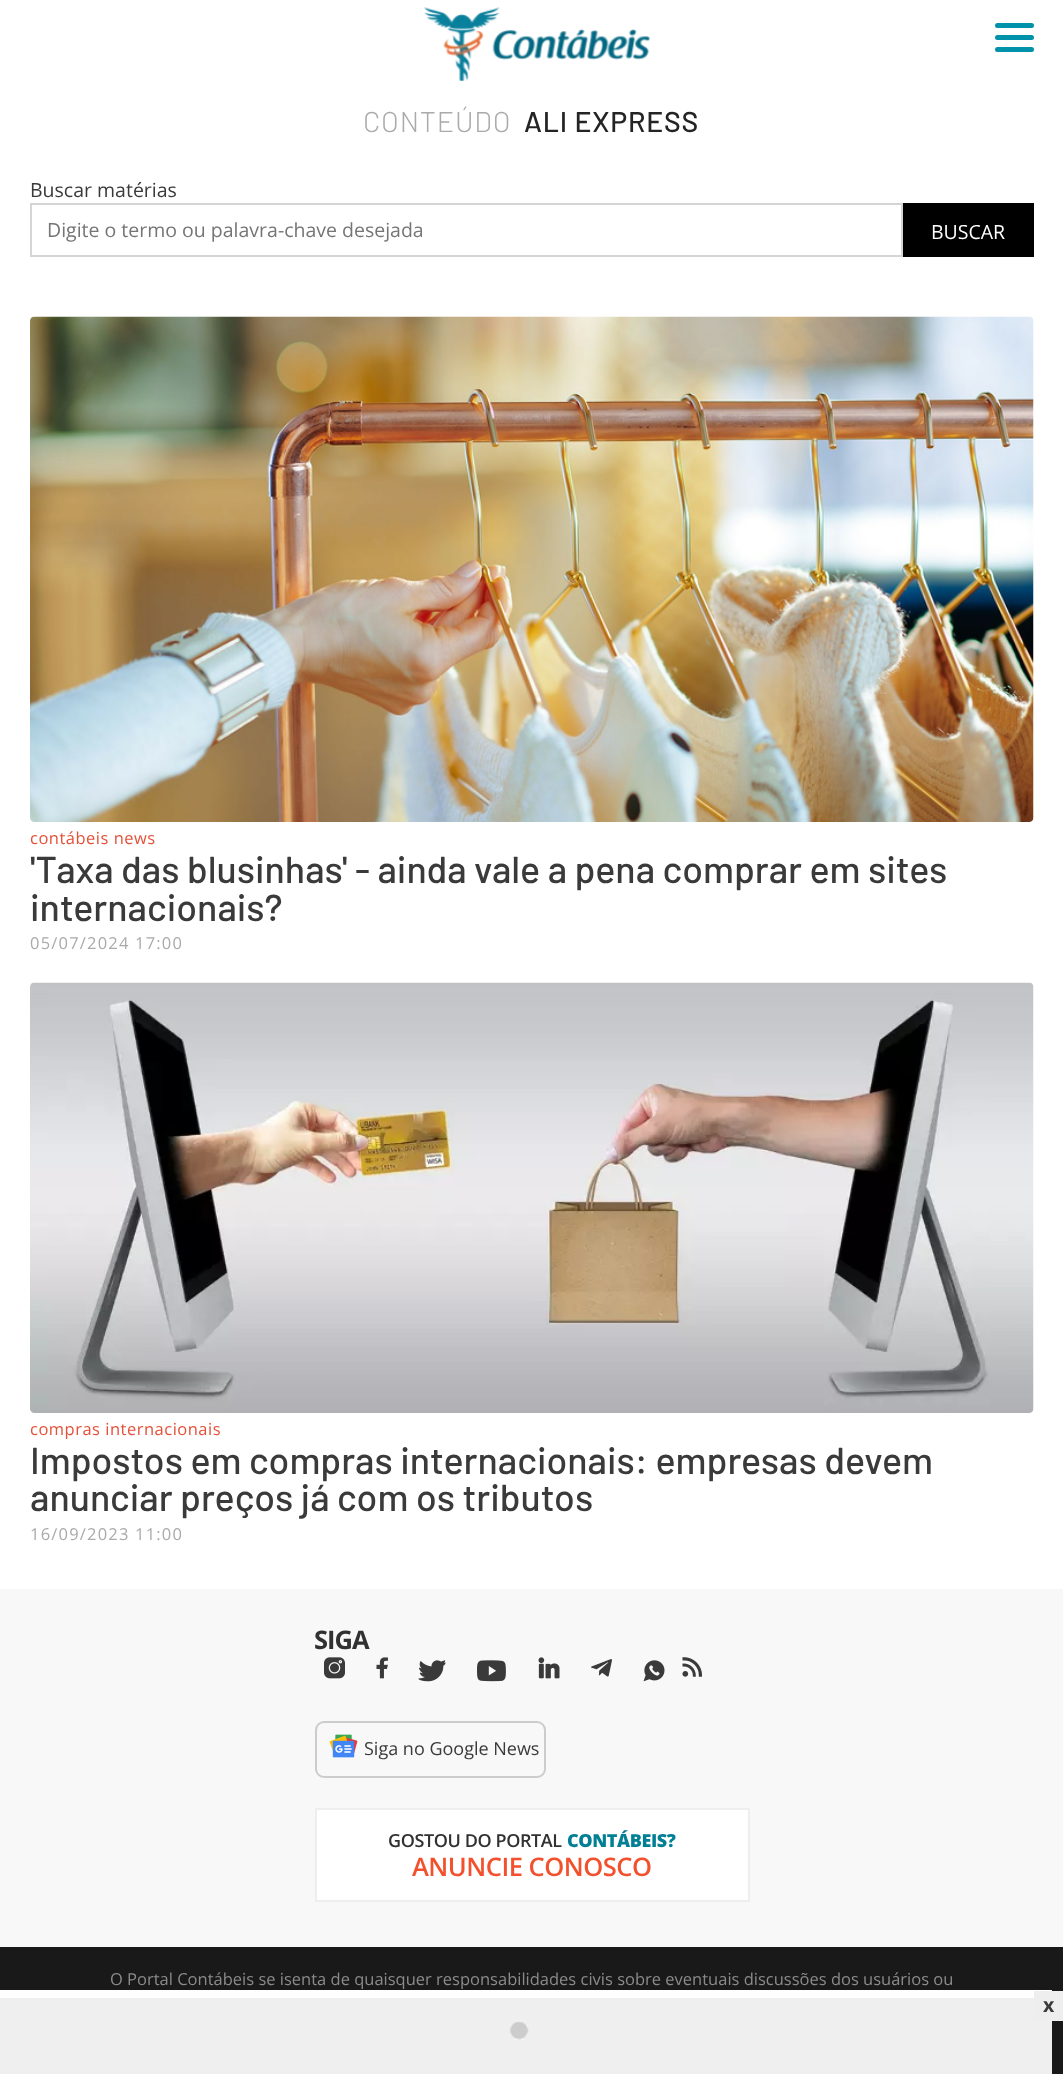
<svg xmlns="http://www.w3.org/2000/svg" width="1063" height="2074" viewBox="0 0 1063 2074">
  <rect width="100%" height="100%" fill="#ffffff"/>
  <image x="424" y="7" width="226" height="74" href="img1.png"/>
  <rect x="995" y="23" width="39" height="5" rx="2.5" fill="#0092ab"/>
  <rect x="995" y="35" width="39" height="5" rx="2.5" fill="#0092ab"/>
  <rect x="995" y="47" width="39" height="5" rx="2.5" fill="#0092ab"/>
  <text x="363" y="132" font-family="Barlow" font-size="28.5" font-weight="300" letter-spacing="0.8" fill="#aaaaaa">CONTEÚDO</text>
  <text x="524" y="132" font-family="Barlow" font-size="28.5" font-weight="500" letter-spacing="0.8" fill="#242424">ALI EXPRESS</text>
  <text x="30" y="197" font-family="Open Sans" font-size="19.5" fill="#3a3a3a">Buscar matérias</text>
  <rect x="31" y="204" width="871" height="52" fill="none" stroke="#d5d5d5" stroke-width="2"/>
  <text x="47" y="237" font-family="Open Sans" font-size="19.5" fill="#757575">Digite o termo ou palavra-chave desejada</text>
  <rect x="903" y="203" width="131" height="54" fill="#000000"/>
  <text x="931" y="239" font-family="Open Sans" font-size="19.5" fill="#ffffff">BUSCAR</text>
  <image x="30" y="316" width="1004" height="506" href="img2.png"/>
  <text x="30" y="844" font-family="Open Sans" font-size="16.5" letter-spacing="0.5" fill="#e45038">contábeis news</text>
  <text x="30" y="883" font-family="Barlow" font-size="37.5" font-weight="500" fill="#3a3a3a">'Taxa das blusinhas' - ainda vale a pena comprar em sites</text>
  <text x="30" y="921" font-family="Barlow" font-size="37.5" font-weight="500" fill="#3a3a3a">internacionais?</text>
  <text x="30" y="949" font-family="Open Sans" font-size="16.5" letter-spacing="1.2" fill="#aaaaaa">05/07/2024 17:00</text>
  <image x="30" y="982" width="1004" height="431" href="img3.png"/>
  <text x="30" y="1435" font-family="Open Sans" font-size="16.5" letter-spacing="0.5" fill="#e45038">compras internacionais</text>
  <text x="30" y="1474" font-family="Barlow" font-size="37.5" font-weight="500" fill="#3a3a3a">Impostos em compras internacionais: empresas devem</text>
  <text x="30" y="1511" font-family="Barlow" font-size="37.5" font-weight="500" fill="#3a3a3a">anunciar preços já com os tributos</text>
  <text x="30" y="1540" font-family="Open Sans" font-size="16.5" letter-spacing="1.2" fill="#aaaaaa">16/09/2023 11:00</text>
  <rect x="0" y="1589" width="1063" height="358" fill="#f8f8f8"/>
  <text x="314" y="1649" font-family="Open Sans" font-size="25.5" font-weight="bold" letter-spacing="-1" fill="#313131">SIGA</text>
  <image x="324" y="1657" width="21" height="22" href="img4.png"/>
  <image x="376" y="1657" width="12" height="22" href="img5.png"/>
  <image x="418" y="1660" width="28" height="22" href="img6.png"/>
  <image x="477" y="1660" width="29" height="22" href="img7.png"/>
  <image x="538" y="1657" width="22" height="22" href="img8.png"/>
  <image x="591" y="1659" width="21" height="18" href="img9.png"/>
  <image x="643" y="1660" width="22" height="22" href="img10.png"/>
  <image x="682" y="1657" width="20" height="20" href="img11.png"/>
  <rect x="316" y="1722" width="229" height="55" rx="8" fill="none" stroke="#cccccc" stroke-width="2"/>
  <image x="329" y="1734" width="29" height="24" href="img12.png"/>
  <text x="364" y="1755" font-family="Open Sans" font-size="18" fill="#3a3a3a">Siga no Google News</text>
  <rect x="316" y="1809" width="433" height="92" fill="#ffffff" stroke="#eeeeee" stroke-width="2"/>
  <text x="388" y="1847" font-family="Open Sans" font-size="18" font-weight="600" letter-spacing="-0.4" fill="#313131">GOSTOU DO PORTAL</text>
  <text x="567" y="1847" font-family="Open Sans" font-size="18" font-weight="800" letter-spacing="-0.4" fill="#007f95">CONTÁBEIS?</text>
  <text x="412" y="1876" font-family="Open Sans" font-size="25.5" font-weight="600" letter-spacing="-0.5" fill="#f3502d">ANUNCIE CONOSCO</text>
  <rect x="0" y="1947" width="1063" height="127" fill="#191919"/>
  <text x="110" y="1985" font-family="Open Sans" font-size="16.5" fill="#8b8b8b">O Portal Contábeis se isenta de quaisquer responsabilidades civis sobre eventuais discussões dos usuários ou</text>
  <rect x="0" y="1998" width="1050" height="75" fill="#efefef"/>
  <image x="509" y="2021" width="20" height="19" href="img13.png"/>
  <path d="M-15 1990H1052L1050 1998H-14Z" fill="#ffffff"/>
  <path d="M1052 1990V2074L1050 2073V1998Z" fill="#eeeeee"/>
  <rect x="0" y="2073" width="1052" height="1" fill="#eeeeee"/>
  <rect x="1034" y="1991" width="29" height="30" fill="#eeeeee"/>
  <text x="1043" y="2012" font-family="Open Sans" font-size="19.5" font-weight="bold" fill="#3a3a3a">x</text>
</svg>
